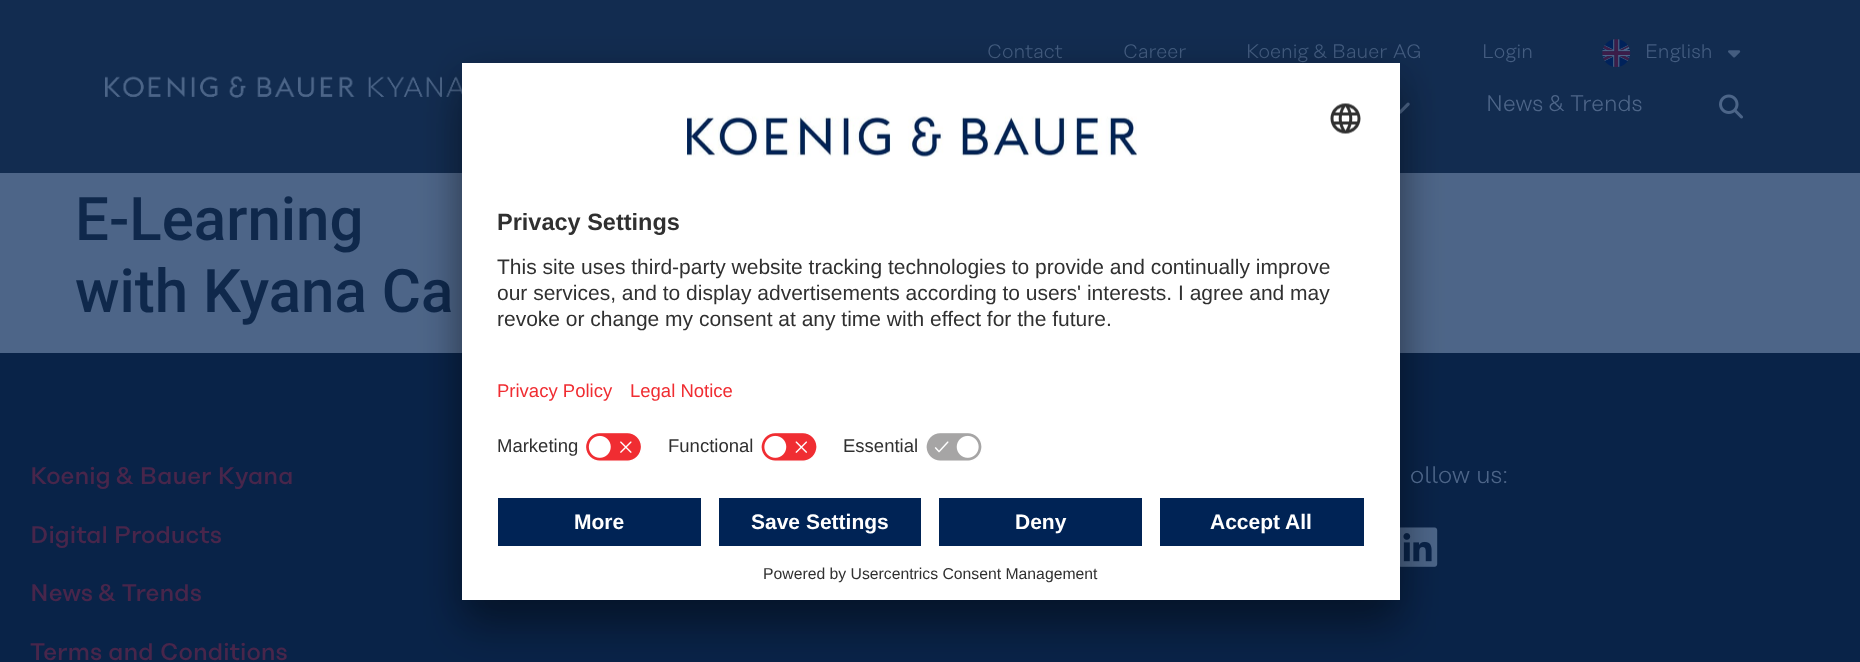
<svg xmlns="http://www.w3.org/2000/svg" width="1860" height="662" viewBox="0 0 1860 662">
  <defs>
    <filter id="blur1" x="-50%" y="-200%" width="200%" height="500%"><feGaussianBlur stdDeviation="21"/></filter>
    <filter id="blur2" x="-50%" y="-200%" width="200%" height="500%"><feGaussianBlur stdDeviation="19.5"/></filter>
  </defs>
  <rect width="100%" height="100%" fill="#4d6588"/>
  <rect x="0" y="0" width="1860" height="173" fill="#122c50"/>
  <image x="105" y="76" width="357" height="22" href="img1.png"/>
  <text x="987" y="58" font-family="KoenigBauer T" font-size="19.5" font-weight="300" fill="#445d80">Contact</text>
  <text x="1123" y="58" font-family="KoenigBauer T" font-size="19.5" font-weight="300" fill="#445d80">Career</text>
  <text x="1246" y="58" font-family="KoenigBauer T" font-size="19.5" font-weight="300" fill="#445d80">Koenig &amp; Bauer AG</text>
  <text x="1482" y="58" font-family="KoenigBauer T" font-size="19.5" font-weight="300" fill="#445d80">Login</text>
  <image x="1602" y="39" width="29" height="28" href="img2.png"/>
  <text x="1645" y="58" font-family="KoenigBauer T" font-size="19.5" font-weight="300" fill="#445d80">English</text>
  <image x="1728" y="50" width="13" height="8" href="img3.png"/>
  <image x="1400" y="102" width="10" height="12" href="img4.png"/>
  <text x="1486" y="111" font-family="KoenigBauer T" font-size="22.5" font-weight="300" fill="#4d6588">News &amp; Trends</text>
  <image x="1719" y="94" width="24" height="25" href="img5.png"/>
  <text x="75" y="240" font-family="Roboto" font-size="60" font-weight="500" fill="#0f284b">E-Learning</text>
  <text x="75" y="312" font-family="Roboto" font-size="60" font-weight="500" fill="#0f284b">with Kyana Ca</text>
  <rect x="0" y="353" width="1860" height="309" fill="#092348"/>
  <image x="1400" y="527" width="38" height="40" href="img11.png"/>
  <rect x="462" y="93" width="938" height="537" fill="#000000" fill-opacity="0.3" filter="url(#blur1)"/>
  <rect x="462" y="71" width="938" height="537" fill="#000000" fill-opacity="0.22" filter="url(#blur2)"/>
  <rect x="462" y="63" width="938" height="537" fill="#ffffff"/>
  <image x="687" y="116" width="450" height="41" href="img6.png"/>
  <image x="1330" y="103" width="31" height="31" href="img7.png"/>
  <text x="497" y="230" font-family="Liberation Sans" font-size="23.5" font-weight="bold" fill="#303030">Privacy Settings</text>
  <text x="497" y="274" font-family="Liberation Sans" font-size="21" fill="#303030">This site uses third-party website tracking technologies to provide and continually improve</text>
  <text x="497" y="300" font-family="Liberation Sans" font-size="21" fill="#303030">our services, and to display advertisements according to users' interests. I agree and may</text>
  <text x="497" y="326" font-family="Liberation Sans" font-size="21" fill="#303030">revoke or change my consent at any time with effect for the future.</text>
  <text x="497" y="397" font-family="Liberation Sans" font-size="18.5" fill="#f02d32">Privacy Policy</text>
  <text x="630" y="397" font-family="Liberation Sans" font-size="18.5" fill="#f02d32">Legal Notice</text>
  <text x="497" y="452" font-family="Liberation Sans" font-size="18.5" fill="#303030">Marketing</text>
  <image x="586" y="432" width="56" height="30" href="img8.png"/>
  <text x="668" y="452" font-family="Liberation Sans" font-size="18.5" fill="#303030">Functional</text>
  <image x="761" y="433" width="56" height="29" href="img9.png"/>
  <text x="843" y="452" font-family="Liberation Sans" font-size="18.5" fill="#303030">Essential</text>
  <image x="926" y="433" width="56" height="28" href="img10.png"/>
  <rect x="498" y="498" width="203" height="48" fill="#002355"/>
  <text x="574" y="529" font-family="Liberation Sans" font-size="21" font-weight="bold" fill="#ffffff">More</text>
  <rect x="719" y="498" width="202" height="48" fill="#002355"/>
  <text x="751" y="529" font-family="Liberation Sans" font-size="21" font-weight="bold" fill="#ffffff">Save Settings</text>
  <rect x="939" y="498" width="203" height="48" fill="#002355"/>
  <text x="1015" y="529" font-family="Liberation Sans" font-size="21" font-weight="bold" fill="#ffffff">Deny</text>
  <rect x="1160" y="498" width="204" height="48" fill="#002355"/>
  <text x="1210" y="529" font-family="Liberation Sans" font-size="21" font-weight="bold" fill="#ffffff">Accept All</text>
  <text x="763" y="579" font-family="Liberation Sans" font-size="15.75" fill="#303030">Powered by Usercentrics Consent Management</text>
  <text x="30" y="484" font-family="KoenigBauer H" font-size="24" font-weight="500" fill="#48264b">Koenig &amp; Bauer Kyana</text>
  <text x="30" y="543" font-family="KoenigBauer H" font-size="24" font-weight="500" fill="#48264b">Digital Products</text>
  <text x="30" y="601" font-family="KoenigBauer H" font-size="24" font-weight="500" fill="#48264b">News &amp; Trends</text>
  <text x="30" y="660" font-family="KoenigBauer H" font-size="24" font-weight="500" fill="#48264b">Terms and Conditions</text>
  <text x="1410" y="483" font-family="KoenigBauer T" font-size="24" font-weight="300" fill="#4d6588">ollow us:</text>
</svg>
